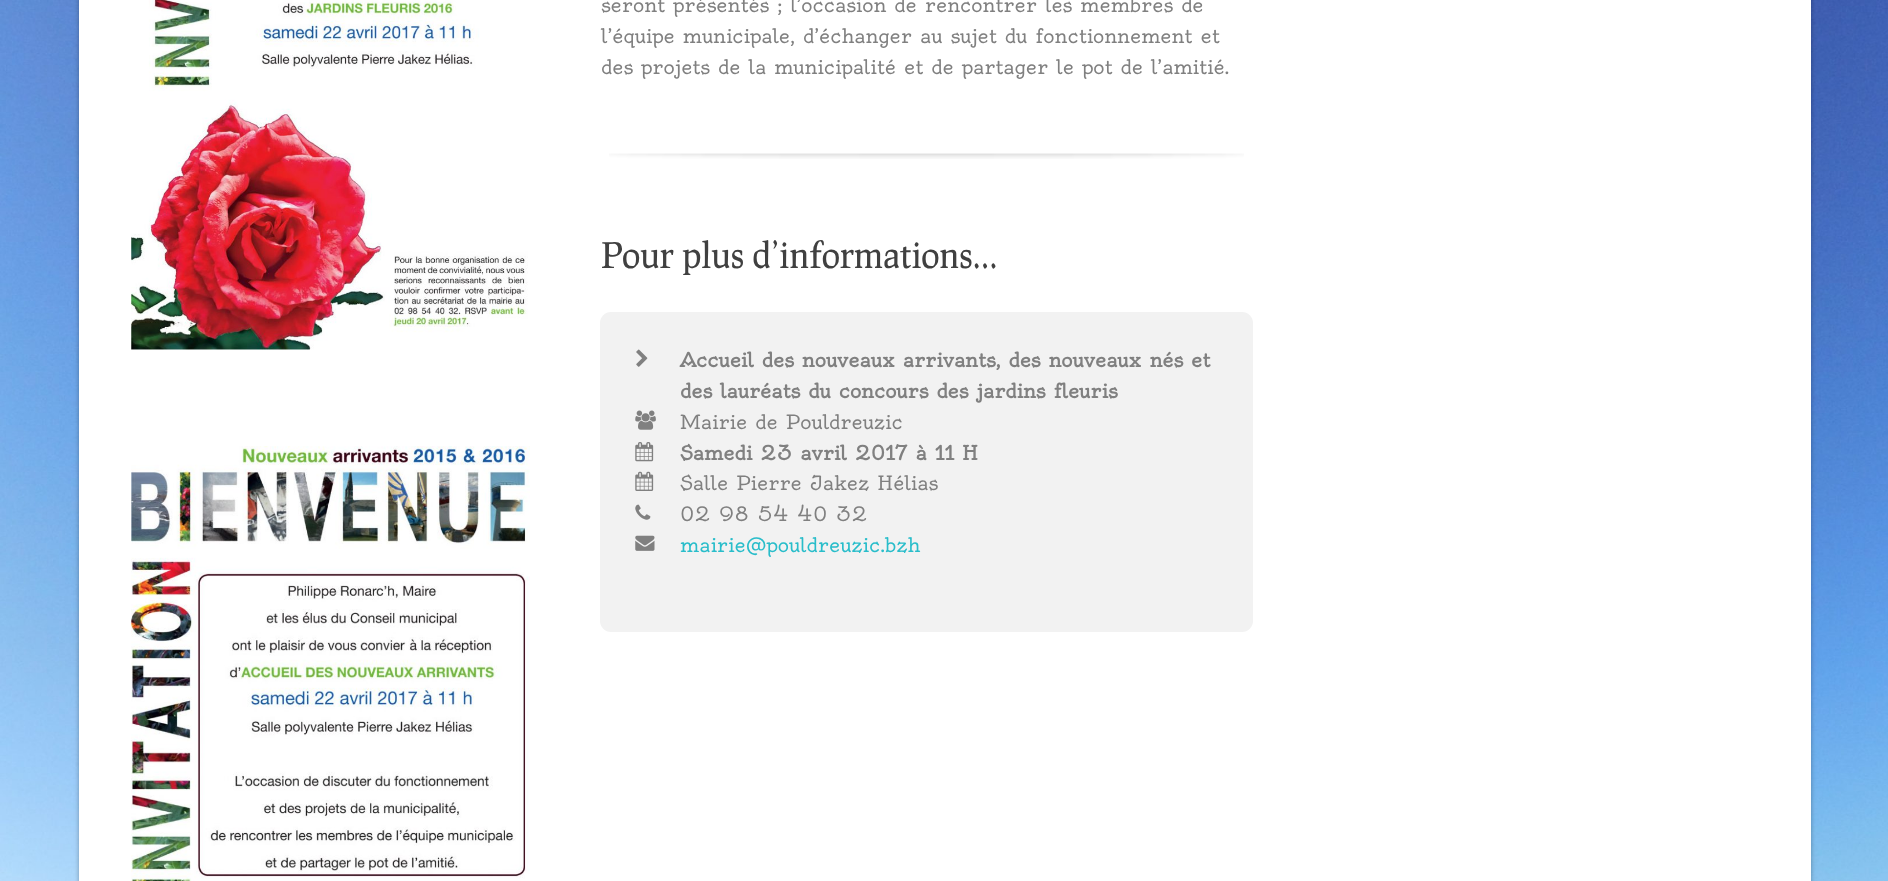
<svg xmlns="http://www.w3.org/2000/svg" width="1888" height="881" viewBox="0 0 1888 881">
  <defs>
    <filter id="blur1" x="-50%" y="-200%" width="200%" height="500%"><feGaussianBlur stdDeviation="2.5"/></filter>
  </defs>
  <rect width="100%" height="100%" fill="#ffffff"/>
  <image x="0" y="0" width="1888" height="881" href="img1.png"/>
  <rect x="79" y="-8" width="1732" height="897" fill="#000000" fill-opacity="0.3" filter="url(#blur1)"/>
  <rect x="79" y="0" width="1732" height="881" fill="#ffffff"/>
  <image x="131" y="0" width="397" height="350" href="img2.png"/>
  <image x="131" y="446" width="399" height="435" href="img3.png"/>
  <text x="601" y="12" font-family="Oldenburg" font-size="19.25" fill="#808080">seront présentés ; l’occasion de rencontrer les membres de</text>
  <text x="601" y="43" font-family="Oldenburg" font-size="19.25" fill="#808080">l’équipe municipale, d’échanger au sujet du fonctionnement et</text>
  <text x="601" y="74" font-family="Oldenburg" font-size="19.25" fill="#808080">des projets de la municipalité et de partager le pot de l’amitié.</text>
  <image x="609" y="153" width="635" height="6" href="img4.png"/>
  <text x="601" y="268" font-family="Prociono" font-size="35" fill="#404040">Pour plus d’informations…</text>
  <rect x="600" y="312" width="653" height="320" rx="11" fill="#f2f2f2"/>
  <image x="636" y="349" width="12" height="18" href="img5.png"/>
  <text x="680" y="367" font-family="Oldenburg" font-size="19.25" font-weight="bold" fill="#808080">Accueil des nouveaux arrivants, des nouveaux nés et</text>
  <text x="680" y="398" font-family="Oldenburg" font-size="19.25" font-weight="bold" fill="#808080">des lauréats du concours des jardins fleuris</text>
  <image x="635" y="410" width="21" height="20" href="img6.png"/>
  <text x="680" y="429" font-family="Oldenburg" font-size="19.25" fill="#808080">Mairie de Pouldreuzic</text>
  <image x="635" y="442" width="19" height="20" href="img7.png"/>
  <text x="680" y="460" font-family="Oldenburg" font-size="19.25" font-weight="bold" fill="#808080">Samedi 23 avril 2017 à 11 H</text>
  <image x="635" y="471" width="19" height="20" href="img8.png"/>
  <text x="680" y="490" font-family="Oldenburg" font-size="19.25" fill="#808080">Salle Pierre Jakez Hélias</text>
  <image x="635" y="504" width="16" height="16" href="img9.png"/>
  <text x="680" y="521" font-family="Oldenburg" font-size="19.25" fill="#808080">02 98 54 40 32</text>
  <image x="635" y="535" width="20" height="16" href="img10.png"/>
  <text x="680" y="552" font-family="Oldenburg" font-size="19.25" fill="#29bdca">mairie@pouldreuzic.bzh</text>
</svg>
